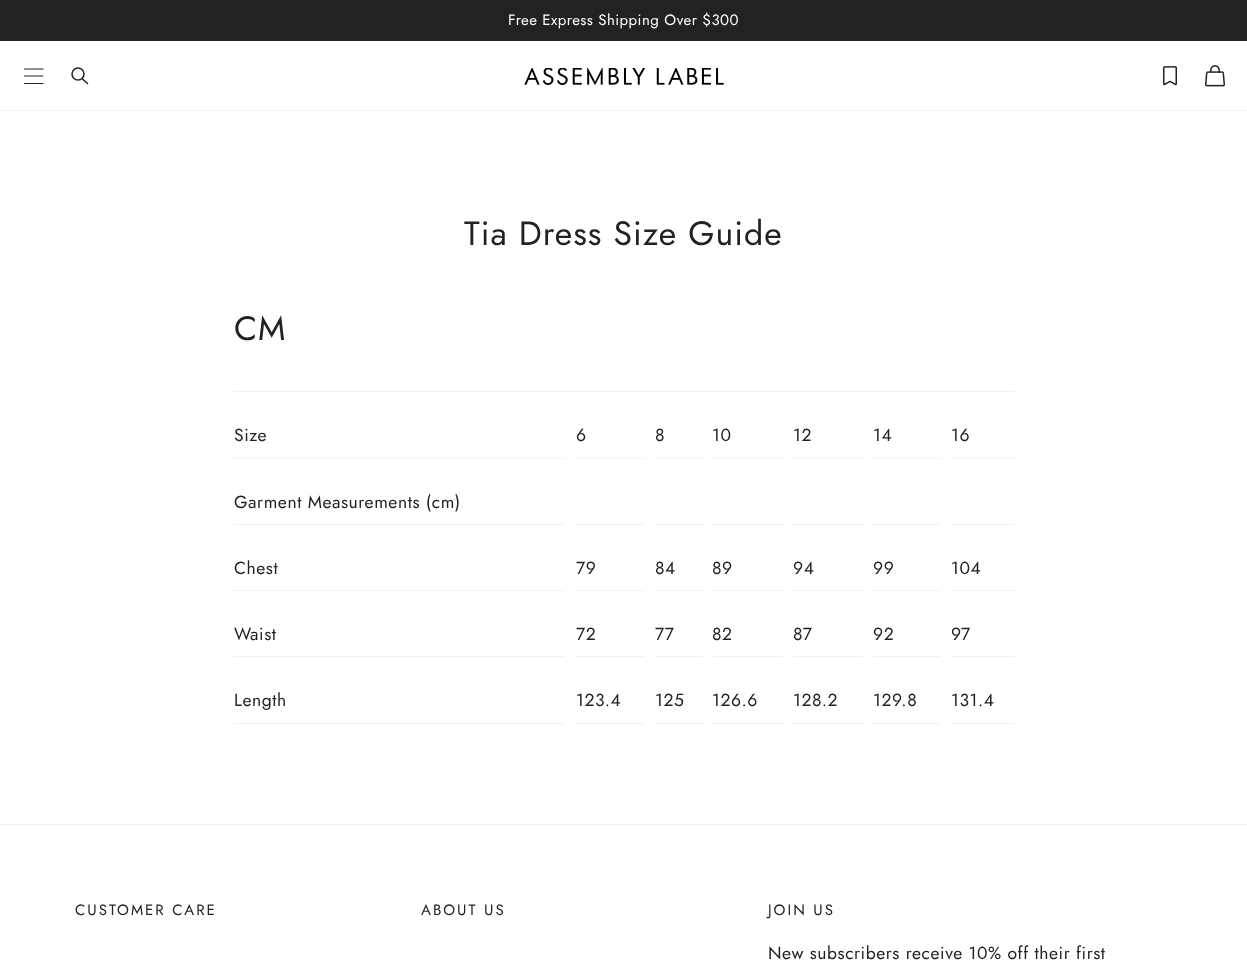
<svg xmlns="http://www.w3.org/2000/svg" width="1247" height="960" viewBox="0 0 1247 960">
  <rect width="100%" height="100%" fill="#ffffff"/>
  <rect x="0" y="0" width="1247" height="41" fill="#222222"/>
  <text x="508" y="25" font-family="Jost" font-size="15" letter-spacing="0.45" fill="#ffffff">Free Express Shipping Over $300</text>
  <rect x="0" y="110" width="1247" height="1" fill="#f2f2f2"/>
  <path d="M24.5 76H43M24.5 83.5H43M24.5 69H43" fill="none" stroke="#222222" stroke-linecap="round" stroke-linejoin="round"/>
  <circle cx="78" cy="74" r="6" fill="none" stroke="#222222" stroke-width="1.5"/>
  <path d="M82.5 79L87.5 83.5" fill="none" stroke="#222222" stroke-width="1.5" stroke-linecap="round" stroke-linejoin="round"/>
  <image x="524" y="68" width="200" height="17" href="img1.png"/>
  <image x="1163" y="66" width="14" height="20" href="img2.png"/>
  <image x="1205" y="65" width="20" height="22" href="img3.png"/>
  <text x="464" y="245" font-family="Jost" font-size="33.75" letter-spacing="1" fill="#222222">Tia Dress Size Guide</text>
  <text x="234" y="340" font-family="Jost" font-size="33.75" letter-spacing="1" fill="#222222">CM</text>
  <rect x="234" y="391" width="780" height="1" fill="#f2f2f2"/>
  <text x="234" y="441" font-family="Jost" font-size="17.5" letter-spacing="0.55" fill="#222222">Size</text>
  <rect x="234" y="458" width="331" height="1" fill="#f2f2f2"/>
  <text x="576" y="441" font-family="Jost" font-size="17.5" letter-spacing="0.55" fill="#222222">6</text>
  <rect x="575" y="458" width="70" height="1" fill="#f2f2f2"/>
  <text x="655" y="441" font-family="Jost" font-size="17.5" letter-spacing="0.55" fill="#222222">8</text>
  <rect x="655" y="458" width="48" height="1" fill="#f2f2f2"/>
  <text x="712" y="441" font-family="Jost" font-size="17.5" letter-spacing="0.55" fill="#222222">10</text>
  <rect x="713" y="458" width="70" height="1" fill="#f2f2f2"/>
  <text x="793" y="441" font-family="Jost" font-size="17.5" letter-spacing="0.55" fill="#222222">12</text>
  <rect x="793" y="458" width="70" height="1" fill="#f2f2f2"/>
  <text x="873" y="441" font-family="Jost" font-size="17.5" letter-spacing="0.55" fill="#222222">14</text>
  <rect x="873" y="458" width="68" height="1" fill="#f2f2f2"/>
  <text x="951" y="441" font-family="Jost" font-size="17.5" letter-spacing="0.55" fill="#222222">16</text>
  <rect x="951" y="458" width="63" height="1" fill="#f2f2f2"/>
  <text x="234" y="508" font-family="Jost" font-size="17.5" letter-spacing="0.55" fill="#222222">Garment Measurements (cm)</text>
  <rect x="234" y="524" width="331" height="1" fill="#f2f2f2"/>
  <rect x="575" y="524" width="70" height="1" fill="#f2f2f2"/>
  <rect x="655" y="524" width="48" height="1" fill="#f2f2f2"/>
  <rect x="713" y="524" width="70" height="1" fill="#f2f2f2"/>
  <rect x="793" y="524" width="70" height="1" fill="#f2f2f2"/>
  <rect x="873" y="524" width="68" height="1" fill="#f2f2f2"/>
  <rect x="951" y="524" width="63" height="1" fill="#f2f2f2"/>
  <text x="234" y="574" font-family="Jost" font-size="17.5" letter-spacing="0.55" fill="#222222">Chest</text>
  <rect x="234" y="590" width="331" height="1" fill="#f2f2f2"/>
  <text x="576" y="574" font-family="Jost" font-size="17.5" letter-spacing="0.55" fill="#222222">79</text>
  <rect x="575" y="590" width="70" height="1" fill="#f2f2f2"/>
  <text x="655" y="574" font-family="Jost" font-size="17.5" letter-spacing="0.55" fill="#222222">84</text>
  <rect x="655" y="590" width="48" height="1" fill="#f2f2f2"/>
  <text x="712" y="574" font-family="Jost" font-size="17.5" letter-spacing="0.55" fill="#222222">89</text>
  <rect x="713" y="590" width="70" height="1" fill="#f2f2f2"/>
  <text x="793" y="574" font-family="Jost" font-size="17.5" letter-spacing="0.55" fill="#222222">94</text>
  <rect x="793" y="590" width="70" height="1" fill="#f2f2f2"/>
  <text x="873" y="574" font-family="Jost" font-size="17.5" letter-spacing="0.55" fill="#222222">99</text>
  <rect x="873" y="590" width="68" height="1" fill="#f2f2f2"/>
  <text x="951" y="574" font-family="Jost" font-size="17.5" letter-spacing="0.55" fill="#222222">104</text>
  <rect x="951" y="590" width="63" height="1" fill="#f2f2f2"/>
  <text x="234" y="640" font-family="Jost" font-size="17.5" letter-spacing="0.55" fill="#222222">Waist</text>
  <rect x="234" y="656" width="331" height="1" fill="#f2f2f2"/>
  <text x="576" y="640" font-family="Jost" font-size="17.5" letter-spacing="0.55" fill="#222222">72</text>
  <rect x="575" y="656" width="70" height="1" fill="#f2f2f2"/>
  <text x="655" y="640" font-family="Jost" font-size="17.5" letter-spacing="0.55" fill="#222222">77</text>
  <rect x="655" y="656" width="48" height="1" fill="#f2f2f2"/>
  <text x="712" y="640" font-family="Jost" font-size="17.5" letter-spacing="0.55" fill="#222222">82</text>
  <rect x="713" y="656" width="70" height="1" fill="#f2f2f2"/>
  <text x="793" y="640" font-family="Jost" font-size="17.5" letter-spacing="0.55" fill="#222222">87</text>
  <rect x="793" y="656" width="70" height="1" fill="#f2f2f2"/>
  <text x="873" y="640" font-family="Jost" font-size="17.5" letter-spacing="0.55" fill="#222222">92</text>
  <rect x="873" y="656" width="68" height="1" fill="#f2f2f2"/>
  <text x="951" y="640" font-family="Jost" font-size="17.5" letter-spacing="0.55" fill="#222222">97</text>
  <rect x="951" y="656" width="63" height="1" fill="#f2f2f2"/>
  <text x="234" y="706" font-family="Jost" font-size="17.5" letter-spacing="0.55" fill="#222222">Length</text>
  <rect x="234" y="723" width="331" height="1" fill="#f2f2f2"/>
  <text x="576" y="706" font-family="Jost" font-size="17.5" letter-spacing="0.55" fill="#222222">123.4</text>
  <rect x="575" y="723" width="70" height="1" fill="#f2f2f2"/>
  <text x="655" y="706" font-family="Jost" font-size="17.5" letter-spacing="0.55" fill="#222222">125</text>
  <rect x="655" y="723" width="48" height="1" fill="#f2f2f2"/>
  <text x="712" y="706" font-family="Jost" font-size="17.5" letter-spacing="0.55" fill="#222222">126.6</text>
  <rect x="713" y="723" width="70" height="1" fill="#f2f2f2"/>
  <text x="793" y="706" font-family="Jost" font-size="17.5" letter-spacing="0.55" fill="#222222">128.2</text>
  <rect x="793" y="723" width="70" height="1" fill="#f2f2f2"/>
  <text x="873" y="706" font-family="Jost" font-size="17.5" letter-spacing="0.55" fill="#222222">129.8</text>
  <rect x="873" y="723" width="68" height="1" fill="#f2f2f2"/>
  <text x="951" y="706" font-family="Jost" font-size="17.5" letter-spacing="0.55" fill="#222222">131.4</text>
  <rect x="951" y="723" width="63" height="1" fill="#f2f2f2"/>
  <rect x="0" y="824" width="1247" height="1" fill="#f2f2f2"/>
  <text x="75" y="915" font-family="Jost" font-size="15" letter-spacing="2" fill="#222222">CUSTOMER CARE</text>
  <text x="421" y="915" font-family="Jost" font-size="15" letter-spacing="2" fill="#222222">ABOUT US</text>
  <text x="768" y="915" font-family="Jost" font-size="15" letter-spacing="2" fill="#222222">JOIN US</text>
  <text x="768" y="959" font-family="Jost" font-size="17.5" letter-spacing="0.55" fill="#222222">New subscribers receive 10% off their first</text>
</svg>
